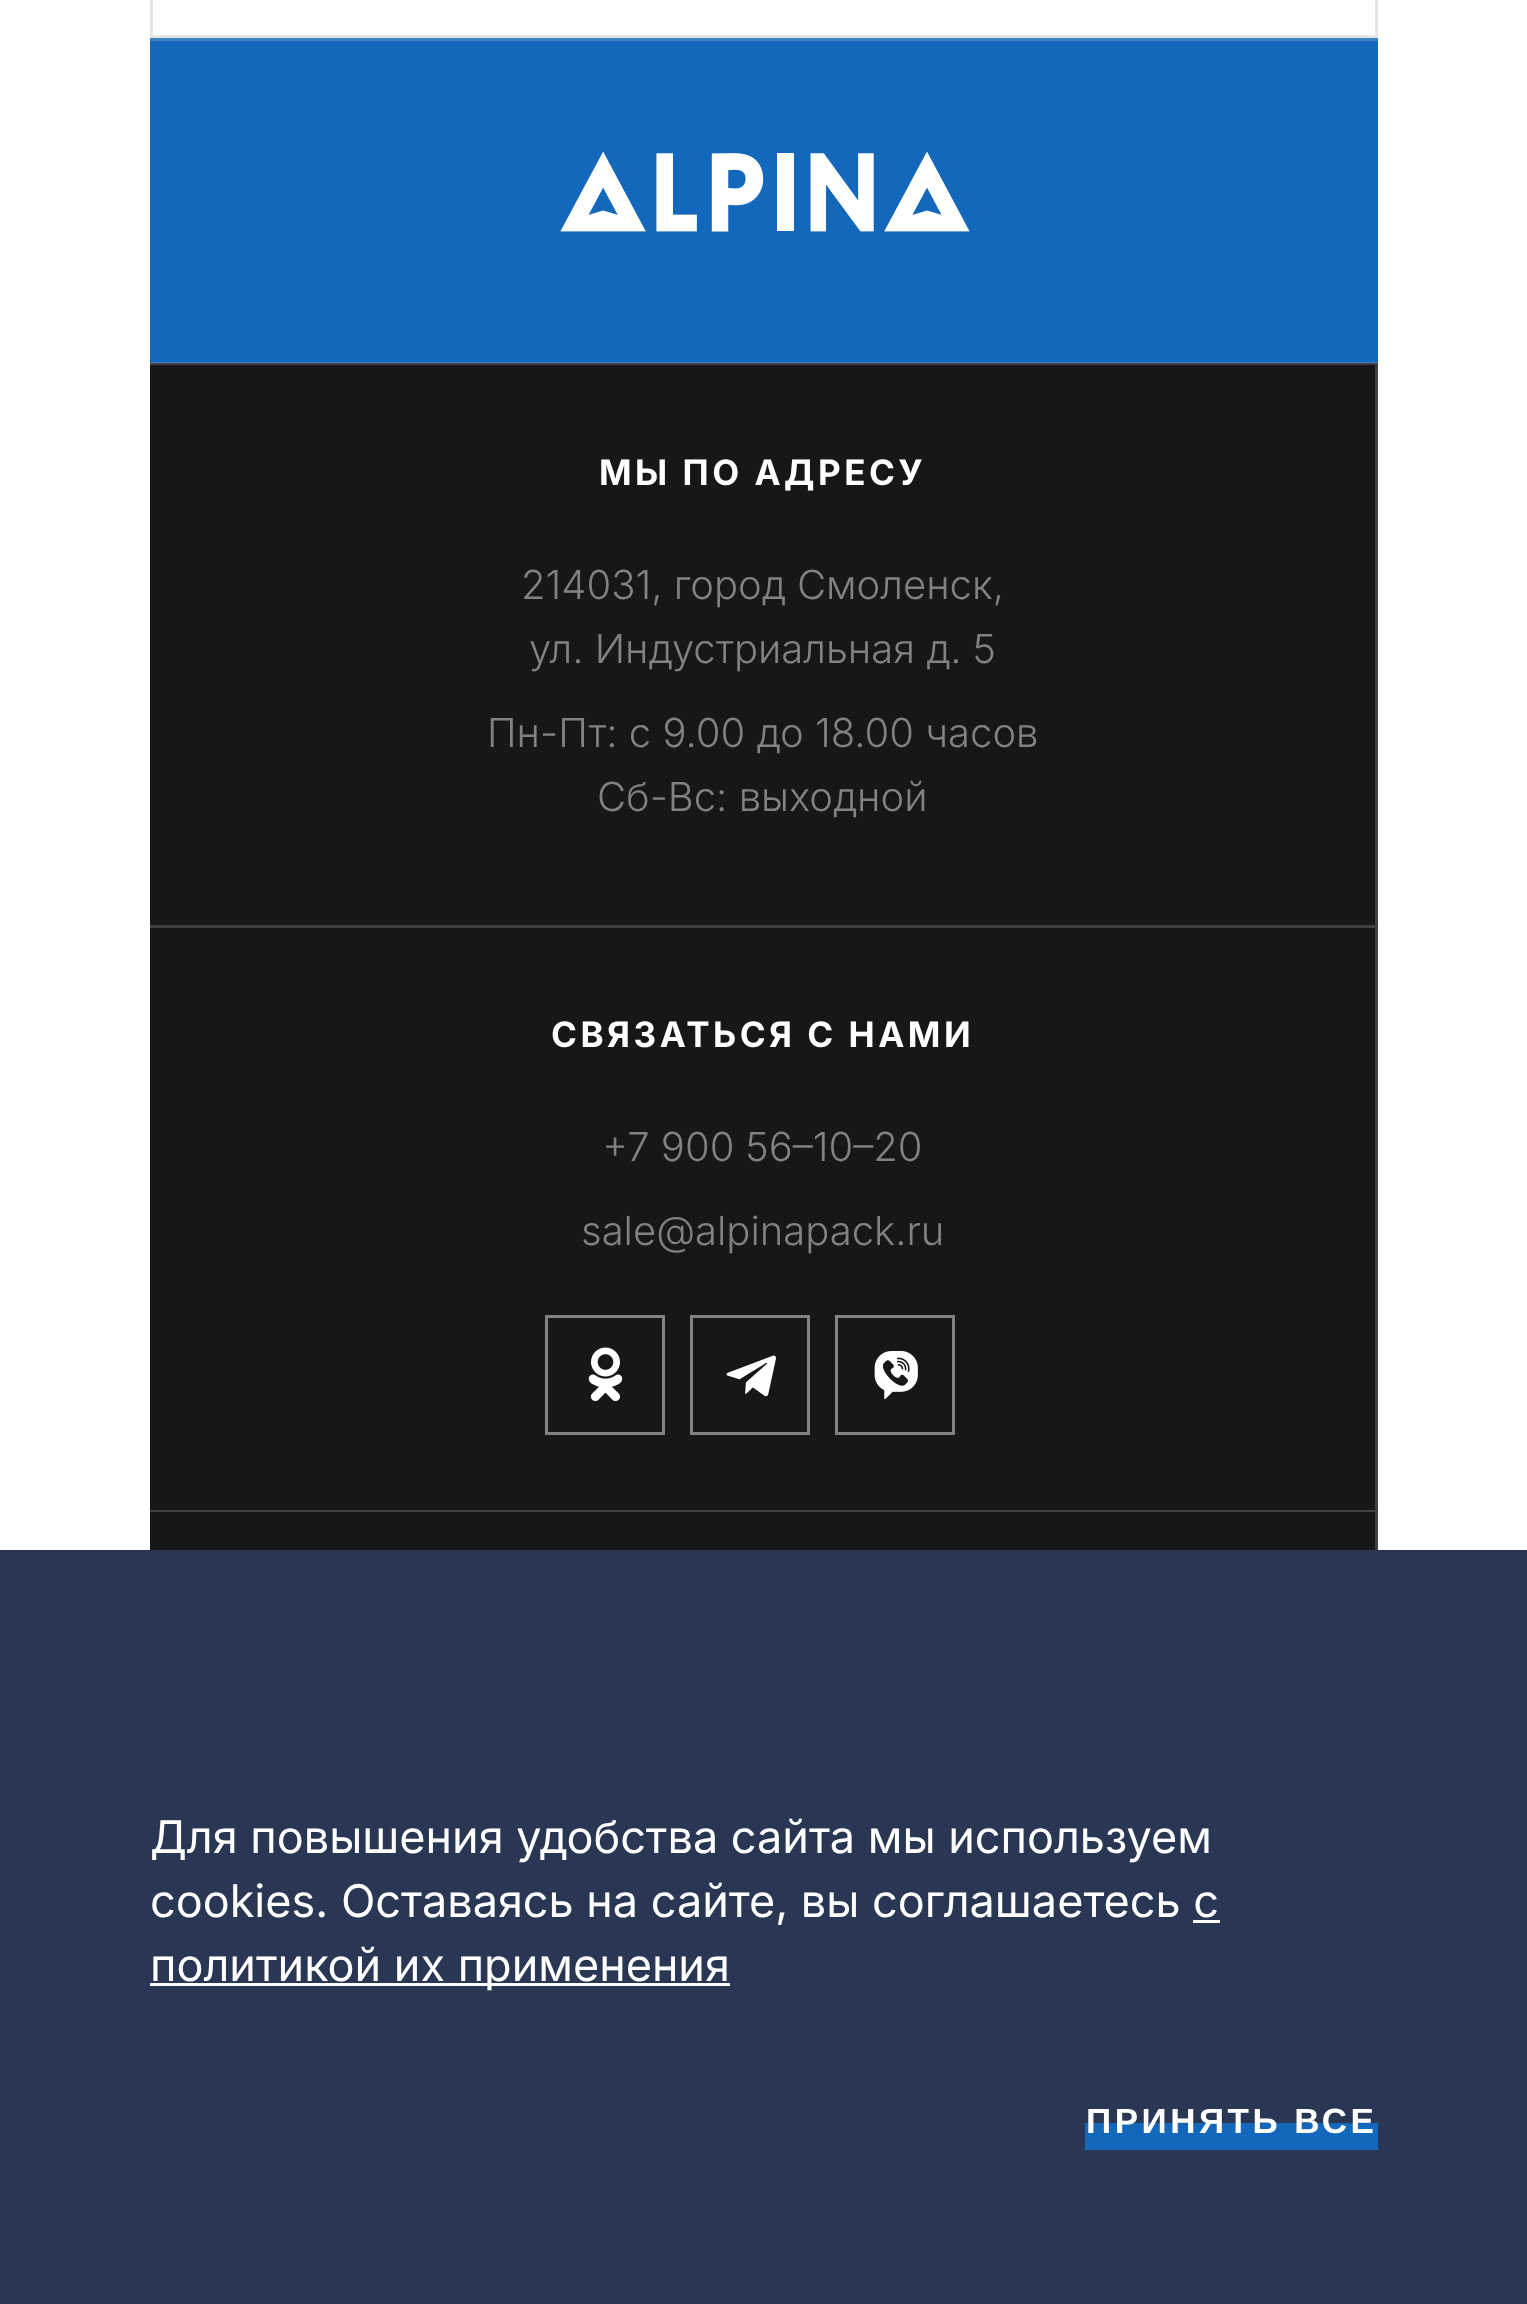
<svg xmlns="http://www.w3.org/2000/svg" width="1527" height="2304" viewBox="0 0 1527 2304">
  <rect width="100%" height="100%" fill="#ffffff"/>
  <rect x="1375" y="0" width="3" height="38" fill="#e5e5e5"/>
  <rect x="150" y="35" width="1228" height="3" fill="#e5e5e5"/>
  <rect x="150" y="0" width="3" height="38" fill="#e5e5e5"/>
  <rect x="150" y="363" width="1228" height="1187" fill="#171719"/>
  <rect x="150" y="41" width="1228" height="322" fill="#1468bc"/>
  <rect x="150" y="38" width="1228" height="3" fill="#3e81c4"/>
  <image x="560" y="151" width="410" height="81" href="img1.png"/>
  <path d="M150 362H1378L1375 365H150Z" fill="#e5e5e5" fill-opacity="0.2"/>
  <path d="M1378 362V925H1375V365Z" fill="#e5e5e5" fill-opacity="0.2"/>
  <text x="599" y="485" font-family="Inter" font-size="35" font-weight="bold" letter-spacing="3.5" fill="#ffffff">МЫ ПО АДРЕСУ</text>
  <text x="521" y="599" font-family="Inter" font-size="40" font-weight="300" fill="#828282">214031, город Смоленск,</text>
  <text x="529" y="663" font-family="Inter" font-size="40" font-weight="300" fill="#828282">ул. Индустриальная д. 5</text>
  <text x="487" y="747" font-family="Inter" font-size="40" font-weight="300" fill="#828282">Пн-Пт: с 9.00 до 18.00 часов</text>
  <text x="597" y="811" font-family="Inter" font-size="40" font-weight="300" fill="#828282">Сб-Вс: выходной</text>
  <path d="M150 925H1378L1375 928H150Z" fill="#404042"/>
  <path d="M1378 925V1510H1375V928Z" fill="#e5e5e5" fill-opacity="0.2"/>
  <text x="551" y="1047" font-family="Inter" font-size="35" font-weight="bold" letter-spacing="3.5" fill="#ffffff">СВЯЗАТЬСЯ С НАМИ</text>
  <text x="602" y="1161" font-family="Inter" font-size="40" font-weight="300" fill="#828282">+7 900 56–10–20</text>
  <text x="581" y="1245" font-family="Inter" font-size="40" font-weight="300" fill="#828282">sale@alpinapack.ru</text>
  <rect x="546.5" y="1316.5" width="117" height="117" fill="none" stroke="#828282" stroke-width="3"/>
  <image x="588" y="1347" width="35" height="55" href="img2.png"/>
  <rect x="691.5" y="1316.5" width="117" height="117" fill="none" stroke="#828282" stroke-width="3"/>
  <image x="726" y="1355" width="50" height="42" href="img3.png"/>
  <rect x="836.5" y="1316.5" width="117" height="117" fill="none" stroke="#828282" stroke-width="3"/>
  <image x="874" y="1351" width="44" height="48" href="img4.png"/>
  <path d="M150 1510H1378L1375 1512H150Z" fill="#404042"/>
  <path d="M1378 1510V2030H1375V1512Z" fill="#e5e5e5" fill-opacity="0.2"/>
  <rect x="0" y="1550" width="1527" height="754" fill="#293755"/>
  <text x="150" y="1853" font-family="Inter" font-size="45" fill="#ffffff">Для повышения удобства сайта мы используем</text>
  <text x="150" y="1917" font-family="Inter" font-size="45" fill="#ffffff">cookies. Оставаясь на сайте, вы соглашаетесь с</text>
  <rect x="150" y="1983" width="580" height="3" fill="#ffffff"/>
  <text x="150" y="1981" font-family="Inter" font-size="45" fill="#ffffff">политикой их применения</text>
  <rect x="1193" y="1920" width="27" height="3" fill="#ffffff"/>
  <rect x="1085" y="2123" width="293" height="27" fill="#1468bc"/>
  <text x="1086" y="2133" font-family="Liberation Sans" font-size="35" font-weight="bold" letter-spacing="3.5" fill="#ffffff">ПРИНЯТЬ ВСЕ</text>
</svg>
